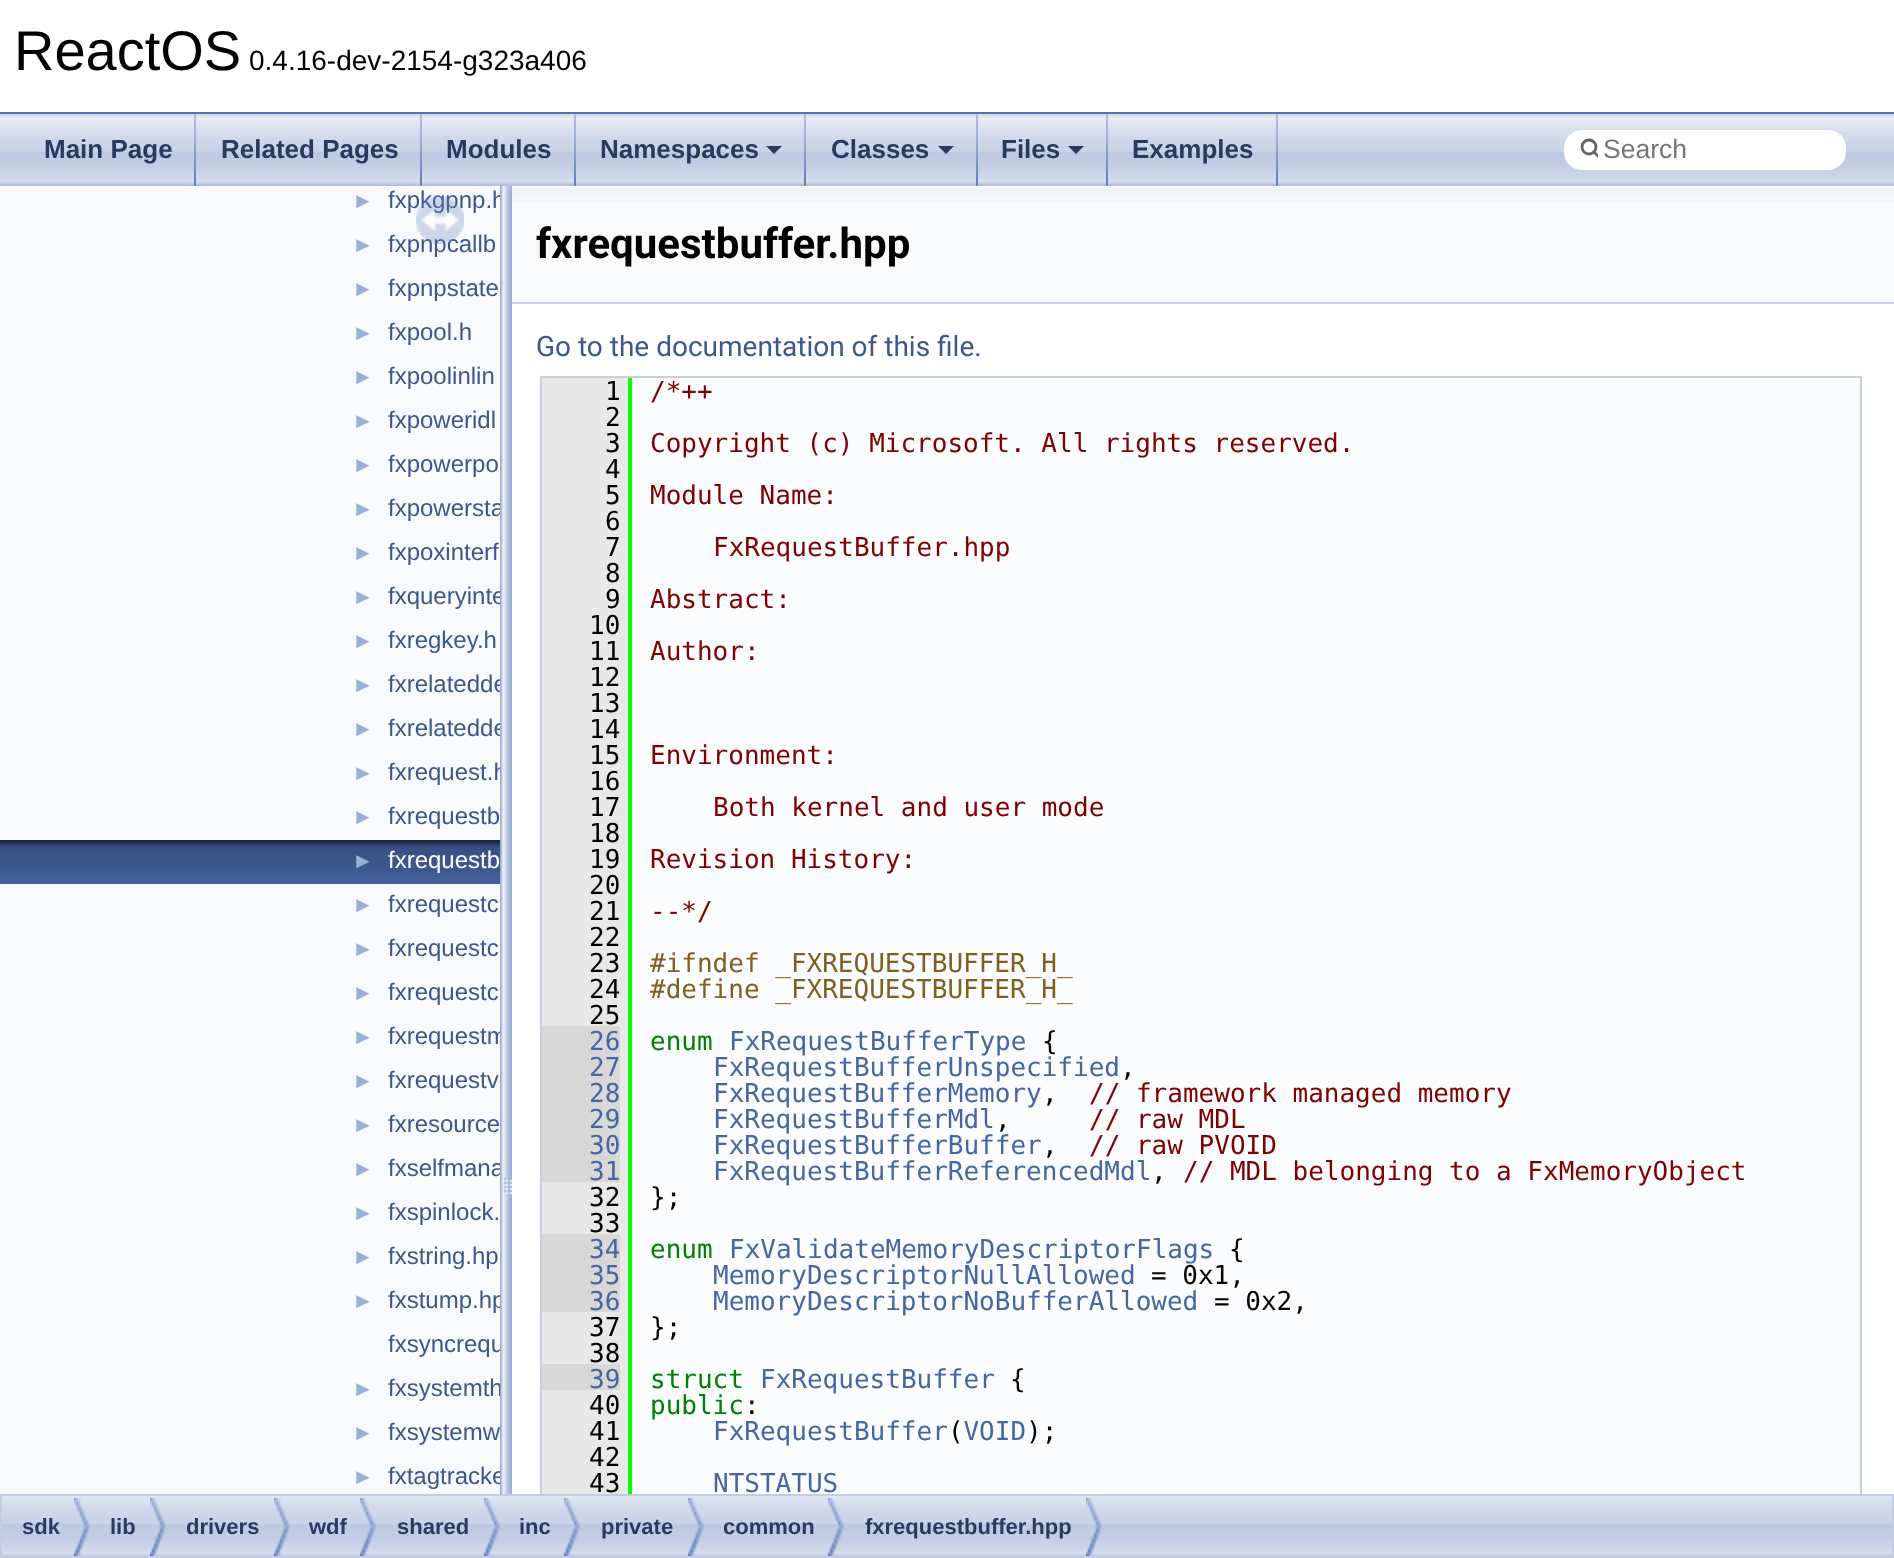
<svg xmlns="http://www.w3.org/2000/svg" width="1894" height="1558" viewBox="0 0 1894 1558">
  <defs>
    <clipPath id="clip1"><rect x="1578" y="130" width="20" height="38"/></clipPath>
  </defs>
  <rect width="100%" height="100%" fill="#ffffff"/>
  <rect x="0" y="112" width="1894" height="2" fill="#5373b4"/>
  <text x="14" y="70" font-family="Liberation Sans" font-size="56" fill="#000000">ReactOS</text>
  <text x="249" y="70" font-family="Liberation Sans" font-size="28" fill="#000000">0.4.16-dev-2154-g323a406</text>
  <image x="0" y="114" width="1894" height="72" href="img1.png"/>
  <image x="194" y="114" width="2" height="72" href="img2.png"/>
  <text x="44" y="158" font-family="Liberation Sans" font-size="26" font-weight="bold" fill="#283a5d">Main Page</text>
  <image x="420" y="114" width="2" height="72" href="img2.png"/>
  <text x="221" y="158" font-family="Liberation Sans" font-size="26" font-weight="bold" fill="#283a5d">Related Pages</text>
  <image x="574" y="114" width="2" height="72" href="img2.png"/>
  <text x="446" y="158" font-family="Liberation Sans" font-size="26" font-weight="bold" fill="#283a5d">Modules</text>
  <image x="804" y="114" width="2" height="72" href="img2.png"/>
  <text x="600" y="158" font-family="Liberation Sans" font-size="26" font-weight="bold" fill="#283a5d">Namespaces</text>
  <path d="M766 146H782L774 154Z" fill="#283a5d"/>
  <image x="976" y="114" width="2" height="72" href="img2.png"/>
  <text x="831" y="158" font-family="Liberation Sans" font-size="26" font-weight="bold" fill="#283a5d">Classes</text>
  <path d="M938 146H954L946 154Z" fill="#283a5d"/>
  <image x="1106" y="114" width="2" height="72" href="img2.png"/>
  <text x="1001" y="158" font-family="Liberation Sans" font-size="26" font-weight="bold" fill="#283a5d">Files</text>
  <path d="M1068 146H1084L1076 154Z" fill="#283a5d"/>
  <image x="1276" y="114" width="2" height="72" href="img2.png"/>
  <text x="1132" y="158" font-family="Liberation Sans" font-size="26" font-weight="bold" fill="#283a5d">Examples</text>
  <rect x="1564" y="130" width="282" height="40" rx="18" fill="#ffffff"/>
  <circle cx="1589" cy="147" r="7" fill="none" stroke="#656565" stroke-width="2.8"/>
  <g clip-path="url(#clip1)">
    <path d="M1594 152L1600 158" fill="none" stroke="#656565" stroke-width="2.8" stroke-linecap="round"/>
  </g>
  <text x="1603" y="158" font-family="Liberation Sans" font-size="26.5" fill="#757575">Search</text>
  <rect x="0" y="186" width="500" height="1308" fill="#f9fafc"/>
  <text x="352" y="208" font-family="Liberation Sans" font-size="22" fill="#9cafd4">►</text>
  <text x="388" y="208" font-family="Liberation Sans" font-size="24" fill="#3d578c">fxpkgpnp.h</text>
  <text x="352" y="252" font-family="Liberation Sans" font-size="22" fill="#9cafd4">►</text>
  <text x="388" y="252" font-family="Liberation Sans" font-size="24" fill="#3d578c">fxpnpcallb</text>
  <text x="352" y="296" font-family="Liberation Sans" font-size="22" fill="#9cafd4">►</text>
  <text x="388" y="296" font-family="Liberation Sans" font-size="24" fill="#3d578c">fxpnpstate</text>
  <text x="352" y="340" font-family="Liberation Sans" font-size="22" fill="#9cafd4">►</text>
  <text x="388" y="340" font-family="Liberation Sans" font-size="24" fill="#3d578c">fxpool.h</text>
  <text x="352" y="384" font-family="Liberation Sans" font-size="22" fill="#9cafd4">►</text>
  <text x="388" y="384" font-family="Liberation Sans" font-size="24" fill="#3d578c">fxpoolinlin</text>
  <text x="352" y="428" font-family="Liberation Sans" font-size="22" fill="#9cafd4">►</text>
  <text x="388" y="428" font-family="Liberation Sans" font-size="24" fill="#3d578c">fxpoweridl</text>
  <text x="352" y="472" font-family="Liberation Sans" font-size="22" fill="#9cafd4">►</text>
  <text x="388" y="472" font-family="Liberation Sans" font-size="24" fill="#3d578c">fxpowerpo</text>
  <text x="352" y="516" font-family="Liberation Sans" font-size="22" fill="#9cafd4">►</text>
  <text x="388" y="516" font-family="Liberation Sans" font-size="24" fill="#3d578c">fxpowersta</text>
  <text x="352" y="560" font-family="Liberation Sans" font-size="22" fill="#9cafd4">►</text>
  <text x="388" y="560" font-family="Liberation Sans" font-size="24" fill="#3d578c">fxpoxinterf</text>
  <text x="352" y="604" font-family="Liberation Sans" font-size="22" fill="#9cafd4">►</text>
  <text x="388" y="604" font-family="Liberation Sans" font-size="24" fill="#3d578c">fxqueryinte</text>
  <text x="352" y="648" font-family="Liberation Sans" font-size="22" fill="#9cafd4">►</text>
  <text x="388" y="648" font-family="Liberation Sans" font-size="24" fill="#3d578c">fxregkey.h</text>
  <text x="352" y="692" font-family="Liberation Sans" font-size="22" fill="#9cafd4">►</text>
  <text x="388" y="692" font-family="Liberation Sans" font-size="24" fill="#3d578c">fxrelatedde</text>
  <text x="352" y="736" font-family="Liberation Sans" font-size="22" fill="#9cafd4">►</text>
  <text x="388" y="736" font-family="Liberation Sans" font-size="24" fill="#3d578c">fxrelatedde</text>
  <text x="352" y="780" font-family="Liberation Sans" font-size="22" fill="#9cafd4">►</text>
  <text x="388" y="780" font-family="Liberation Sans" font-size="24" fill="#3d578c">fxrequest.h</text>
  <text x="352" y="824" font-family="Liberation Sans" font-size="22" fill="#9cafd4">►</text>
  <text x="388" y="824" font-family="Liberation Sans" font-size="24" fill="#3d578c">fxrequestb</text>
  <image x="0" y="840" width="500" height="44" href="img3.png"/>
  <text x="352" y="868" font-family="Liberation Sans" font-size="22" fill="#9cafd4">►</text>
  <text x="388" y="868" font-family="Liberation Sans" font-size="24" fill="#ffffff">fxrequestb</text>
  <text x="352" y="912" font-family="Liberation Sans" font-size="22" fill="#9cafd4">►</text>
  <text x="388" y="912" font-family="Liberation Sans" font-size="24" fill="#3d578c">fxrequestc</text>
  <text x="352" y="956" font-family="Liberation Sans" font-size="22" fill="#9cafd4">►</text>
  <text x="388" y="956" font-family="Liberation Sans" font-size="24" fill="#3d578c">fxrequestc</text>
  <text x="352" y="1000" font-family="Liberation Sans" font-size="22" fill="#9cafd4">►</text>
  <text x="388" y="1000" font-family="Liberation Sans" font-size="24" fill="#3d578c">fxrequestc</text>
  <text x="352" y="1044" font-family="Liberation Sans" font-size="22" fill="#9cafd4">►</text>
  <text x="388" y="1044" font-family="Liberation Sans" font-size="24" fill="#3d578c">fxrequestm</text>
  <text x="352" y="1088" font-family="Liberation Sans" font-size="22" fill="#9cafd4">►</text>
  <text x="388" y="1088" font-family="Liberation Sans" font-size="24" fill="#3d578c">fxrequestv</text>
  <text x="352" y="1132" font-family="Liberation Sans" font-size="22" fill="#9cafd4">►</text>
  <text x="388" y="1132" font-family="Liberation Sans" font-size="24" fill="#3d578c">fxresource</text>
  <text x="352" y="1176" font-family="Liberation Sans" font-size="22" fill="#9cafd4">►</text>
  <text x="388" y="1176" font-family="Liberation Sans" font-size="24" fill="#3d578c">fxselfmana</text>
  <text x="352" y="1220" font-family="Liberation Sans" font-size="22" fill="#9cafd4">►</text>
  <text x="388" y="1220" font-family="Liberation Sans" font-size="24" fill="#3d578c">fxspinlock.</text>
  <text x="352" y="1264" font-family="Liberation Sans" font-size="22" fill="#9cafd4">►</text>
  <text x="388" y="1264" font-family="Liberation Sans" font-size="24" fill="#3d578c">fxstring.hp</text>
  <text x="352" y="1308" font-family="Liberation Sans" font-size="22" fill="#9cafd4">►</text>
  <text x="388" y="1308" font-family="Liberation Sans" font-size="24" fill="#3d578c">fxstump.hp</text>
  <text x="388" y="1352" font-family="Liberation Sans" font-size="24" fill="#3d578c">fxsyncrequ</text>
  <text x="352" y="1396" font-family="Liberation Sans" font-size="22" fill="#9cafd4">►</text>
  <text x="388" y="1396" font-family="Liberation Sans" font-size="24" fill="#3d578c">fxsystemth</text>
  <text x="352" y="1440" font-family="Liberation Sans" font-size="22" fill="#9cafd4">►</text>
  <text x="388" y="1440" font-family="Liberation Sans" font-size="24" fill="#3d578c">fxsystemw</text>
  <text x="352" y="1484" font-family="Liberation Sans" font-size="22" fill="#9cafd4">►</text>
  <text x="388" y="1484" font-family="Liberation Sans" font-size="24" fill="#3d578c">fxtagtracke</text>
  <image x="416" y="196" width="48" height="48" href="img4.png"/>
  <image x="500" y="186" width="12" height="1308" href="img5.png"/>
  <rect x="512" y="202" width="1382" height="100" fill="#f9fafc"/>
  <image x="512" y="186" width="1382" height="16" href="img6.png"/>
  <rect x="512" y="302" width="1382" height="2" fill="#c4cfe5"/>
  <text x="536" y="258" font-family="Roboto" font-size="42" font-weight="bold" fill="#000000">fxrequestbuffer.hpp</text>
  <text x="536" y="356" font-family="Roboto" font-size="28" fill="#3d578c">Go to the documentation of this file.</text>
  <rect x="632" y="378" width="1228" height="1116" fill="#fbfcfd"/>
  <rect x="541" y="377" width="1320" height="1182" fill="none" stroke="#c4cfe5" stroke-width="2"/>
  <rect x="542" y="378" width="86" height="648" fill="#e8e8e8"/>
  <text x="605" y="400" font-family="DejaVu Sans Mono" font-size="26" fill="#000000">1</text>
  <rect x="628" y="378" width="4" height="1116" fill="#00ff00"/>
  <text x="650" y="400" font-family="DejaVu Sans Mono" font-size="26" fill="#800000">/*++</text>
  <text x="605" y="426" font-family="DejaVu Sans Mono" font-size="26" fill="#000000">2</text>
  <text x="605" y="452" font-family="DejaVu Sans Mono" font-size="26" fill="#000000">3</text>
  <text x="650" y="452" font-family="DejaVu Sans Mono" font-size="26" fill="#800000">Copyright (c) Microsoft. All rights reserved.</text>
  <text x="605" y="478" font-family="DejaVu Sans Mono" font-size="26" fill="#000000">4</text>
  <text x="605" y="504" font-family="DejaVu Sans Mono" font-size="26" fill="#000000">5</text>
  <text x="650" y="504" font-family="DejaVu Sans Mono" font-size="26" fill="#800000">Module Name:</text>
  <text x="605" y="530" font-family="DejaVu Sans Mono" font-size="26" fill="#000000">6</text>
  <text x="605" y="556" font-family="DejaVu Sans Mono" font-size="26" fill="#000000">7</text>
  <text x="713" y="556" font-family="DejaVu Sans Mono" font-size="26" fill="#800000">FxRequestBuffer.hpp</text>
  <text x="605" y="582" font-family="DejaVu Sans Mono" font-size="26" fill="#000000">8</text>
  <text x="605" y="608" font-family="DejaVu Sans Mono" font-size="26" fill="#000000">9</text>
  <text x="650" y="608" font-family="DejaVu Sans Mono" font-size="26" fill="#800000">Abstract:</text>
  <text x="589" y="634" font-family="DejaVu Sans Mono" font-size="26" fill="#000000">10</text>
  <text x="589" y="660" font-family="DejaVu Sans Mono" font-size="26" fill="#000000">11</text>
  <text x="650" y="660" font-family="DejaVu Sans Mono" font-size="26" fill="#800000">Author:</text>
  <text x="589" y="686" font-family="DejaVu Sans Mono" font-size="26" fill="#000000">12</text>
  <text x="589" y="712" font-family="DejaVu Sans Mono" font-size="26" fill="#000000">13</text>
  <text x="589" y="738" font-family="DejaVu Sans Mono" font-size="26" fill="#000000">14</text>
  <text x="589" y="764" font-family="DejaVu Sans Mono" font-size="26" fill="#000000">15</text>
  <text x="650" y="764" font-family="DejaVu Sans Mono" font-size="26" fill="#800000">Environment:</text>
  <text x="589" y="790" font-family="DejaVu Sans Mono" font-size="26" fill="#000000">16</text>
  <text x="589" y="816" font-family="DejaVu Sans Mono" font-size="26" fill="#000000">17</text>
  <text x="713" y="816" font-family="DejaVu Sans Mono" font-size="26" fill="#800000">Both kernel and user mode</text>
  <text x="589" y="842" font-family="DejaVu Sans Mono" font-size="26" fill="#000000">18</text>
  <text x="589" y="868" font-family="DejaVu Sans Mono" font-size="26" fill="#000000">19</text>
  <text x="650" y="868" font-family="DejaVu Sans Mono" font-size="26" fill="#800000">Revision History:</text>
  <text x="589" y="894" font-family="DejaVu Sans Mono" font-size="26" fill="#000000">20</text>
  <text x="589" y="920" font-family="DejaVu Sans Mono" font-size="26" fill="#000000">21</text>
  <text x="650" y="920" font-family="DejaVu Sans Mono" font-size="26" fill="#800000">--*/</text>
  <text x="589" y="946" font-family="DejaVu Sans Mono" font-size="26" fill="#000000">22</text>
  <text x="589" y="972" font-family="DejaVu Sans Mono" font-size="26" fill="#000000">23</text>
  <text x="650" y="972" font-family="DejaVu Sans Mono" font-size="26" fill="#806020">#ifndef _FXREQUESTBUFFER_H_</text>
  <text x="589" y="998" font-family="DejaVu Sans Mono" font-size="26" fill="#000000">24</text>
  <text x="650" y="998" font-family="DejaVu Sans Mono" font-size="26" fill="#806020">#define _FXREQUESTBUFFER_H_</text>
  <text x="589" y="1024" font-family="DejaVu Sans Mono" font-size="26" fill="#000000">25</text>
  <rect x="542" y="1026" width="78" height="156" fill="#d8d8d8"/>
  <text x="589" y="1050" font-family="DejaVu Sans Mono" font-size="26" fill="#4665a2">26</text>
  <rect x="620" y="1026" width="8" height="156" fill="#e8e8e8"/>
  <text x="650" y="1050" font-family="DejaVu Sans Mono" font-size="26" fill="#008000">enum</text>
  <text x="729" y="1050" font-family="DejaVu Sans Mono" font-size="26" fill="#4665a2">FxRequestBufferType</text>
  <text x="1042" y="1050" font-family="DejaVu Sans Mono" font-size="26" fill="#000000">{</text>
  <text x="589" y="1076" font-family="DejaVu Sans Mono" font-size="26" fill="#4665a2">27</text>
  <text x="713" y="1076" font-family="DejaVu Sans Mono" font-size="26" fill="#4665a2">FxRequestBufferUnspecified</text>
  <text x="1120" y="1076" font-family="DejaVu Sans Mono" font-size="26" fill="#000000">,</text>
  <text x="589" y="1102" font-family="DejaVu Sans Mono" font-size="26" fill="#4665a2">28</text>
  <text x="713" y="1102" font-family="DejaVu Sans Mono" font-size="26" fill="#4665a2">FxRequestBufferMemory</text>
  <text x="1042" y="1102" font-family="DejaVu Sans Mono" font-size="26" fill="#000000">,</text>
  <text x="1089" y="1102" font-family="DejaVu Sans Mono" font-size="26" fill="#800000">// framework managed memory</text>
  <text x="589" y="1128" font-family="DejaVu Sans Mono" font-size="26" fill="#4665a2">29</text>
  <text x="713" y="1128" font-family="DejaVu Sans Mono" font-size="26" fill="#4665a2">FxRequestBufferMdl</text>
  <text x="995" y="1128" font-family="DejaVu Sans Mono" font-size="26" fill="#000000">,</text>
  <text x="1089" y="1128" font-family="DejaVu Sans Mono" font-size="26" fill="#800000">// raw MDL</text>
  <text x="589" y="1154" font-family="DejaVu Sans Mono" font-size="26" fill="#4665a2">30</text>
  <text x="713" y="1154" font-family="DejaVu Sans Mono" font-size="26" fill="#4665a2">FxRequestBufferBuffer</text>
  <text x="1042" y="1154" font-family="DejaVu Sans Mono" font-size="26" fill="#000000">,</text>
  <text x="1089" y="1154" font-family="DejaVu Sans Mono" font-size="26" fill="#800000">// raw PVOID</text>
  <text x="589" y="1180" font-family="DejaVu Sans Mono" font-size="26" fill="#4665a2">31</text>
  <text x="713" y="1180" font-family="DejaVu Sans Mono" font-size="26" fill="#4665a2">FxRequestBufferReferencedMdl</text>
  <text x="1151" y="1180" font-family="DejaVu Sans Mono" font-size="26" fill="#000000">,</text>
  <text x="1183" y="1180" font-family="DejaVu Sans Mono" font-size="26" fill="#800000">// MDL belonging to a FxMemoryObject</text>
  <rect x="542" y="1182" width="86" height="52" fill="#e8e8e8"/>
  <text x="589" y="1206" font-family="DejaVu Sans Mono" font-size="26" fill="#000000">32</text>
  <text x="650" y="1206" font-family="DejaVu Sans Mono" font-size="26" fill="#000000">};</text>
  <text x="589" y="1232" font-family="DejaVu Sans Mono" font-size="26" fill="#000000">33</text>
  <rect x="542" y="1234" width="78" height="78" fill="#d8d8d8"/>
  <text x="589" y="1258" font-family="DejaVu Sans Mono" font-size="26" fill="#4665a2">34</text>
  <rect x="620" y="1234" width="8" height="78" fill="#e8e8e8"/>
  <text x="650" y="1258" font-family="DejaVu Sans Mono" font-size="26" fill="#008000">enum</text>
  <text x="729" y="1258" font-family="DejaVu Sans Mono" font-size="26" fill="#4665a2">FxValidateMemoryDescriptorFlags</text>
  <text x="1229" y="1258" font-family="DejaVu Sans Mono" font-size="26" fill="#000000">{</text>
  <text x="589" y="1284" font-family="DejaVu Sans Mono" font-size="26" fill="#4665a2">35</text>
  <text x="713" y="1284" font-family="DejaVu Sans Mono" font-size="26" fill="#4665a2">MemoryDescriptorNullAllowed</text>
  <text x="1151" y="1284" font-family="DejaVu Sans Mono" font-size="26" fill="#000000">= 0x1,</text>
  <text x="589" y="1310" font-family="DejaVu Sans Mono" font-size="26" fill="#4665a2">36</text>
  <text x="713" y="1310" font-family="DejaVu Sans Mono" font-size="26" fill="#4665a2">MemoryDescriptorNoBufferAllowed</text>
  <text x="1214" y="1310" font-family="DejaVu Sans Mono" font-size="26" fill="#000000">= 0x2,</text>
  <rect x="542" y="1312" width="86" height="52" fill="#e8e8e8"/>
  <text x="589" y="1336" font-family="DejaVu Sans Mono" font-size="26" fill="#000000">37</text>
  <text x="650" y="1336" font-family="DejaVu Sans Mono" font-size="26" fill="#000000">};</text>
  <text x="589" y="1362" font-family="DejaVu Sans Mono" font-size="26" fill="#000000">38</text>
  <rect x="542" y="1364" width="78" height="26" fill="#d8d8d8"/>
  <text x="589" y="1388" font-family="DejaVu Sans Mono" font-size="26" fill="#4665a2">39</text>
  <rect x="620" y="1364" width="8" height="26" fill="#e8e8e8"/>
  <text x="650" y="1388" font-family="DejaVu Sans Mono" font-size="26" fill="#008000">struct</text>
  <text x="760" y="1388" font-family="DejaVu Sans Mono" font-size="26" fill="#4665a2">FxRequestBuffer</text>
  <text x="1010" y="1388" font-family="DejaVu Sans Mono" font-size="26" fill="#000000">{</text>
  <rect x="542" y="1390" width="86" height="104" fill="#e8e8e8"/>
  <text x="589" y="1414" font-family="DejaVu Sans Mono" font-size="26" fill="#000000">40</text>
  <text x="650" y="1414" font-family="DejaVu Sans Mono" font-size="26" fill="#008000">public</text>
  <text x="744" y="1414" font-family="DejaVu Sans Mono" font-size="26" fill="#000000">:</text>
  <text x="713" y="1440" font-family="DejaVu Sans Mono" font-size="26" fill="#4665a2">FxRequestBuffer VOID</text>
  <text x="589" y="1440" font-family="DejaVu Sans Mono" font-size="26" fill="#000000">41</text>
  <text x="948" y="1440" font-family="DejaVu Sans Mono" font-size="26" fill="#000000">(</text>
  <text x="1026" y="1440" font-family="DejaVu Sans Mono" font-size="26" fill="#000000">);</text>
  <text x="589" y="1466" font-family="DejaVu Sans Mono" font-size="26" fill="#000000">42</text>
  <text x="589" y="1492" font-family="DejaVu Sans Mono" font-size="26" fill="#000000">43</text>
  <text x="713" y="1492" font-family="DejaVu Sans Mono" font-size="26" fill="#4665a2">NTSTATUS</text>
  <image x="2" y="1496" width="1890" height="60" href="img7.png"/>
  <rect x="1" y="1495" width="1892" height="62" fill="none" stroke="#c2cde4" stroke-width="2"/>
  <image x="74" y="1498" width="16" height="58" href="img8.png"/>
  <text x="22" y="1534" font-family="Liberation Sans" font-size="22" font-weight="bold" fill="#283a5d">sdk</text>
  <image x="150" y="1498" width="16" height="58" href="img8.png"/>
  <text x="110" y="1534" font-family="Liberation Sans" font-size="22" font-weight="bold" fill="#283a5d">lib</text>
  <image x="274" y="1498" width="16" height="58" href="img8.png"/>
  <text x="186" y="1534" font-family="Liberation Sans" font-size="22" font-weight="bold" fill="#283a5d">drivers</text>
  <image x="360" y="1498" width="16" height="58" href="img8.png"/>
  <text x="309" y="1534" font-family="Liberation Sans" font-size="22" font-weight="bold" fill="#283a5d">wdf</text>
  <image x="484" y="1498" width="16" height="58" href="img8.png"/>
  <text x="397" y="1534" font-family="Liberation Sans" font-size="22" font-weight="bold" fill="#283a5d">shared</text>
  <image x="564" y="1498" width="16" height="58" href="img8.png"/>
  <text x="519" y="1534" font-family="Liberation Sans" font-size="22" font-weight="bold" fill="#283a5d">inc</text>
  <image x="688" y="1498" width="16" height="58" href="img8.png"/>
  <text x="601" y="1534" font-family="Liberation Sans" font-size="22" font-weight="bold" fill="#283a5d">private</text>
  <image x="828" y="1498" width="16" height="58" href="img8.png"/>
  <text x="723" y="1534" font-family="Liberation Sans" font-size="22" font-weight="bold" fill="#283a5d">common</text>
  <image x="1086" y="1498" width="16" height="58" href="img8.png"/>
  <text x="865" y="1534" font-family="Liberation Sans" font-size="22" font-weight="bold" fill="#283a5d">fxrequestbuffer.hpp</text>
</svg>
